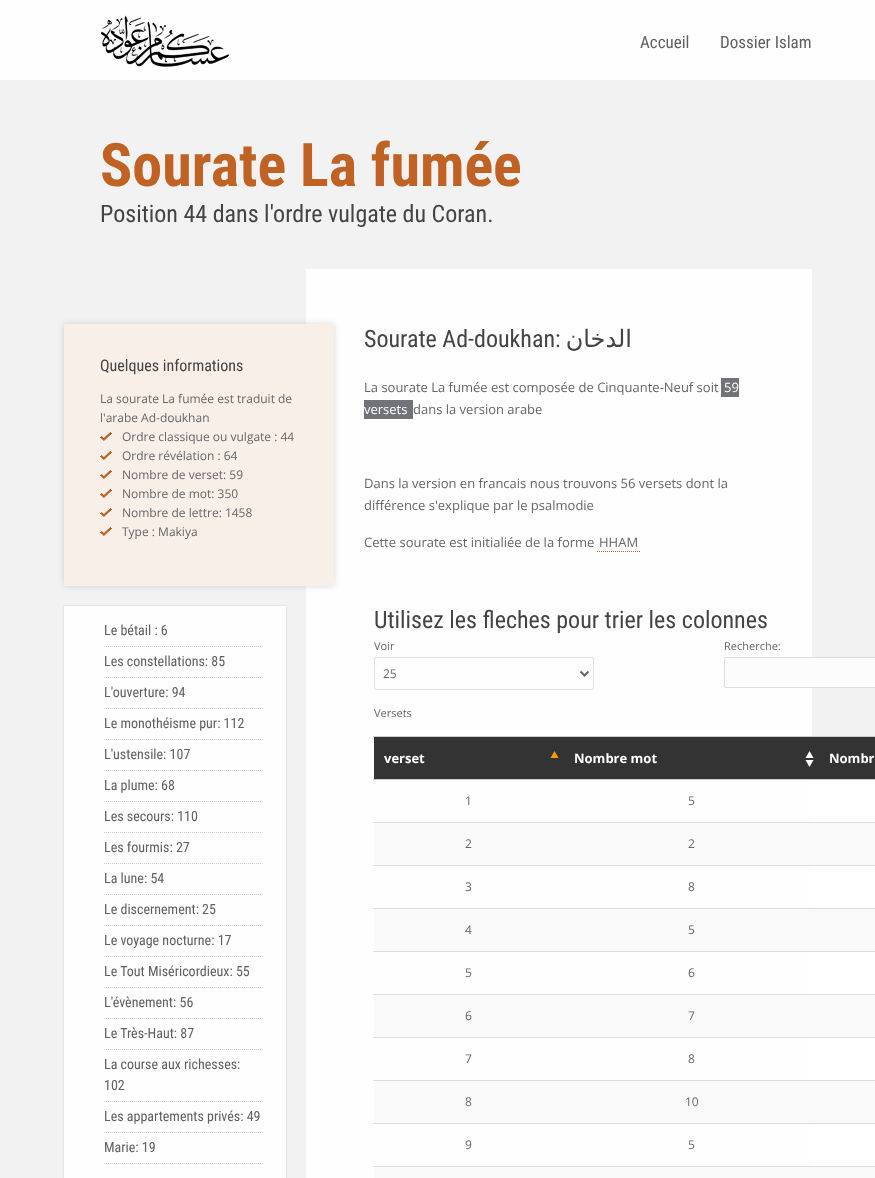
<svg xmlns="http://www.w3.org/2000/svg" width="875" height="1178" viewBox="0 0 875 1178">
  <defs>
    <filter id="blur1" x="-50%" y="-200%" width="200%" height="500%"><feGaussianBlur stdDeviation="3"/></filter>
    <filter id="blur2" x="-50%" y="-200%" width="200%" height="500%"><feGaussianBlur stdDeviation="1"/></filter>
  </defs>
  <rect width="100%" height="100%" fill="#f2f2f2"/>
  <rect x="0" y="0" width="875" height="80" fill="#fefefe"/>
  <image x="101" y="15" width="128" height="52" href="img1.png"/>
  <text x="640" y="48" font-family="Roboto Condensed" font-size="17" fill="#606060">Accueil</text>
  <text x="720" y="48" font-family="Roboto Condensed" font-size="17" fill="#606060">Dossier Islam</text>
  <text x="100" y="186" font-family="Roboto Condensed" font-size="60" font-weight="bold" fill="#c16225">Sourate La fumée</text>
  <text x="100" y="222" font-family="Roboto Condensed" font-size="24" fill="#444444">Position 44 dans l'ordre vulgate du Coran.</text>
  <rect x="306" y="269" width="506" height="909" fill="#fefefe"/>
  <rect x="64" y="324" width="270" height="262" fill="#000000" fill-opacity="0.15" filter="url(#blur1)"/>
  <rect x="64" y="324" width="270" height="262" fill="#f9efe9"/>
  <text x="100" y="371" font-family="Roboto Condensed" font-size="16" fill="#444444">Quelques informations</text>
  <text x="100" y="403" font-family="Open Sans" font-size="12" fill="#666666">La sourate La fumée est traduit de</text>
  <text x="100" y="422" font-family="Open Sans" font-size="12" fill="#666666">l'arabe Ad-doukhan</text>
  <image x="100" y="432" width="12" height="9" href="img2.png"/>
  <text x="122" y="441" font-family="Open Sans" font-size="12" fill="#666666">Ordre classique ou vulgate : 44</text>
  <image x="100" y="451" width="12" height="9" href="img2.png"/>
  <text x="122" y="460" font-family="Open Sans" font-size="12" fill="#666666">Ordre révélation : 64</text>
  <image x="100" y="470" width="12" height="9" href="img2.png"/>
  <text x="122" y="479" font-family="Open Sans" font-size="12" fill="#666666">Nombre de verset: 59</text>
  <image x="100" y="489" width="12" height="9" href="img2.png"/>
  <text x="122" y="498" font-family="Open Sans" font-size="12" fill="#666666">Nombre de mot: 350</text>
  <image x="100" y="508" width="12" height="9" href="img2.png"/>
  <text x="122" y="517" font-family="Open Sans" font-size="12" fill="#666666">Nombre de lettre: 1458</text>
  <image x="100" y="527" width="12" height="9" href="img2.png"/>
  <text x="122" y="536" font-family="Open Sans" font-size="12" fill="#666666">Type : Makiya</text>
  <rect x="64" y="606" width="222" height="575" fill="#000000" fill-opacity="0.15" filter="url(#blur2)"/>
  <rect x="64" y="606" width="222" height="572" fill="#fefefe"/>
  <text x="104" y="635" font-family="Roboto Condensed" font-size="14" fill="#606060">Le bétail : 6</text>
  <path d="M104 646.5H261" fill="none" stroke="#e3c7b4" stroke-dasharray="1 1"/>
  <text x="104" y="666" font-family="Roboto Condensed" font-size="14" fill="#606060">Les constellations: 85</text>
  <path d="M104 677.5H261" fill="none" stroke="#e3c7b4" stroke-dasharray="1 1"/>
  <text x="104" y="697" font-family="Roboto Condensed" font-size="14" fill="#606060">L'ouverture: 94</text>
  <path d="M104 708.5H261" fill="none" stroke="#e3c7b4" stroke-dasharray="1 1"/>
  <text x="104" y="728" font-family="Roboto Condensed" font-size="14" fill="#606060">Le monothéisme pur: 112</text>
  <path d="M104 739.5H261" fill="none" stroke="#e3c7b4" stroke-dasharray="1 1"/>
  <text x="104" y="759" font-family="Roboto Condensed" font-size="14" fill="#606060">L'ustensile: 107</text>
  <path d="M104 770.5H261" fill="none" stroke="#e3c7b4" stroke-dasharray="1 1"/>
  <text x="104" y="790" font-family="Roboto Condensed" font-size="14" fill="#606060">La plume: 68</text>
  <path d="M104 801.5H261" fill="none" stroke="#e3c7b4" stroke-dasharray="1 1"/>
  <text x="104" y="821" font-family="Roboto Condensed" font-size="14" fill="#606060">Les secours: 110</text>
  <path d="M104 832.5H261" fill="none" stroke="#e3c7b4" stroke-dasharray="1 1"/>
  <text x="104" y="852" font-family="Roboto Condensed" font-size="14" fill="#606060">Les fourmis: 27</text>
  <path d="M104 863.5H261" fill="none" stroke="#e3c7b4" stroke-dasharray="1 1"/>
  <text x="104" y="883" font-family="Roboto Condensed" font-size="14" fill="#606060">La lune: 54</text>
  <path d="M104 894.5H261" fill="none" stroke="#e3c7b4" stroke-dasharray="1 1"/>
  <text x="104" y="914" font-family="Roboto Condensed" font-size="14" fill="#606060">Le discernement: 25</text>
  <path d="M104 925.5H261" fill="none" stroke="#e3c7b4" stroke-dasharray="1 1"/>
  <text x="104" y="945" font-family="Roboto Condensed" font-size="14" fill="#606060">Le voyage nocturne: 17</text>
  <path d="M104 956.5H261" fill="none" stroke="#e3c7b4" stroke-dasharray="1 1"/>
  <text x="104" y="976" font-family="Roboto Condensed" font-size="14" fill="#606060">Le Tout Miséricordieux: 55</text>
  <path d="M104 987.5H261" fill="none" stroke="#e3c7b4" stroke-dasharray="1 1"/>
  <text x="104" y="1007" font-family="Roboto Condensed" font-size="14" fill="#606060">L'évènement: 56</text>
  <path d="M104 1018.5H261" fill="none" stroke="#e3c7b4" stroke-dasharray="1 1"/>
  <text x="104" y="1038" font-family="Roboto Condensed" font-size="14" fill="#606060">Le Très-Haut: 87</text>
  <path d="M104 1049.5H261" fill="none" stroke="#e3c7b4" stroke-dasharray="1 1"/>
  <text x="104" y="1069" font-family="Roboto Condensed" font-size="14" fill="#606060">La course aux richesses:</text>
  <text x="104" y="1090" font-family="Roboto Condensed" font-size="14" fill="#606060">102</text>
  <path d="M104 1101.5H261" fill="none" stroke="#e3c7b4" stroke-dasharray="1 1"/>
  <text x="104" y="1121" font-family="Roboto Condensed" font-size="14" fill="#606060">Les appartements privés: 49</text>
  <path d="M104 1132.5H261" fill="none" stroke="#e3c7b4" stroke-dasharray="1 1"/>
  <text x="104" y="1152" font-family="Roboto Condensed" font-size="14" fill="#606060">Marie: 19</text>
  <path d="M104 1163.5H261" fill="none" stroke="#e3c7b4" stroke-dasharray="1 1"/>
  <text x="364" y="347" font-family="Roboto Condensed" font-size="24" fill="#444444">Sourate Ad-doukhan:</text>
  <text x="632" y="347" font-family="DejaVu Sans" font-size="24" direction="rtl" fill="#444444">الدخان</text>
  <text x="364" y="392" font-family="Open Sans" font-size="13" fill="#666666">La sourate La fumée est composée de Cinquante-Neuf soit</text>
  <rect x="721" y="378" width="18" height="19" fill="#727378"/>
  <text x="724" y="392" font-family="Open Sans" font-size="13" fill="#ffffff">59</text>
  <rect x="364" y="400" width="49" height="19" fill="#727378"/>
  <text x="364" y="414" font-family="Open Sans" font-size="13" fill="#ffffff">versets</text>
  <text x="413" y="414" font-family="Open Sans" font-size="13" fill="#666666">dans la version arabe</text>
  <text x="364" y="488" font-family="Open Sans" font-size="13" fill="#666666">Dans la version en francais nous trouvons 56 versets dont la</text>
  <text x="364" y="510" font-family="Open Sans" font-size="13" fill="#666666">différence s'explique par le psalmodie</text>
  <text x="364" y="547" font-family="Open Sans" font-size="13" fill="#666666">Cette sourate est initialiée de la forme</text>
  <text x="599" y="547" font-family="Open Sans" font-size="13" fill="#666666">HHAM</text>
  <path d="M597 551.5H640" fill="none" stroke="#c16225" stroke-dasharray="1 1"/>
  <text x="374" y="628" font-family="Roboto Condensed" font-size="24" fill="#444444">Utilisez les fleches pour trier les colonnes</text>
  <text x="374" y="650" font-family="Open Sans" font-size="11" fill="#666666">Voir</text>
  <rect x="374.5" y="657.5" width="219" height="32" rx="1.5" fill="none" stroke="#dedede"/>
  <path d="M580.5 671.5L584.5 675.5L588.5 671.5" fill="none" stroke="#666666" stroke-width="2"/>
  <text x="383" y="678" font-family="Open Sans" font-size="12" fill="#666666">25</text>
  <text x="374" y="717" font-family="Open Sans" font-size="11" fill="#666666">Versets</text>
  <text x="724" y="650" font-family="Open Sans" font-size="11" fill="#666666">Recherche:</text>
  <rect x="724.5" y="657.5" width="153" height="30" rx="1.5" fill="#fcfcfc" stroke="#dedede"/>
  <rect x="374" y="737" width="501" height="42" fill="#333333"/>
  <image x="550" y="751" width="9" height="7" href="img3.png"/>
  <text x="384" y="763" font-family="Open Sans" font-size="13" font-weight="bold" fill="#ffffff">verset</text>
  <image x="805" y="751" width="9" height="16" href="img4.png"/>
  <text x="574" y="763" font-family="Open Sans" font-size="13" font-weight="bold" fill="#ffffff">Nombre mot</text>
  <rect x="373" y="736" width="502" height="1" fill="#cccccc"/>
  <rect x="373" y="779" width="502" height="1" fill="#cccccc"/>
  <text x="829" y="763" font-family="Open Sans" font-size="13" font-weight="bold" fill="#ffffff">Nombr</text>
  <text x="465" y="805" font-family="Open Sans" font-size="12" fill="#666666">1</text>
  <rect x="812" y="780" width="63" height="42" fill="#ffffff"/>
  <text x="688" y="805" font-family="Open Sans" font-size="12" fill="#666666">5</text>
  <rect x="373" y="822" width="502" height="1" fill="#dddddd"/>
  <rect x="374" y="823" width="501" height="42" fill="#f9f9f9"/>
  <text x="465" y="848" font-family="Open Sans" font-size="12" fill="#666666">2</text>
  <text x="688" y="848" font-family="Open Sans" font-size="12" fill="#666666">2</text>
  <rect x="373" y="865" width="502" height="1" fill="#dddddd"/>
  <text x="465" y="891" font-family="Open Sans" font-size="12" fill="#666666">3</text>
  <rect x="812" y="866" width="63" height="42" fill="#ffffff"/>
  <text x="688" y="891" font-family="Open Sans" font-size="12" fill="#666666">8</text>
  <rect x="373" y="908" width="502" height="1" fill="#dddddd"/>
  <rect x="374" y="909" width="501" height="42" fill="#f9f9f9"/>
  <text x="465" y="934" font-family="Open Sans" font-size="12" fill="#666666">4</text>
  <text x="688" y="934" font-family="Open Sans" font-size="12" fill="#666666">5</text>
  <rect x="373" y="951" width="502" height="1" fill="#dddddd"/>
  <text x="465" y="977" font-family="Open Sans" font-size="12" fill="#666666">5</text>
  <rect x="812" y="952" width="63" height="42" fill="#ffffff"/>
  <text x="688" y="977" font-family="Open Sans" font-size="12" fill="#666666">6</text>
  <rect x="373" y="994" width="502" height="1" fill="#dddddd"/>
  <rect x="374" y="995" width="501" height="42" fill="#f9f9f9"/>
  <text x="465" y="1020" font-family="Open Sans" font-size="12" fill="#666666">6</text>
  <text x="688" y="1020" font-family="Open Sans" font-size="12" fill="#666666">7</text>
  <rect x="373" y="1037" width="502" height="1" fill="#dddddd"/>
  <text x="465" y="1063" font-family="Open Sans" font-size="12" fill="#666666">7</text>
  <rect x="812" y="1038" width="63" height="42" fill="#ffffff"/>
  <text x="688" y="1063" font-family="Open Sans" font-size="12" fill="#666666">8</text>
  <rect x="373" y="1080" width="502" height="1" fill="#dddddd"/>
  <rect x="374" y="1081" width="501" height="42" fill="#f9f9f9"/>
  <text x="465" y="1106" font-family="Open Sans" font-size="12" fill="#666666">8</text>
  <text x="685" y="1106" font-family="Open Sans" font-size="12" fill="#666666">10</text>
  <rect x="373" y="1123" width="502" height="1" fill="#dddddd"/>
  <text x="465" y="1149" font-family="Open Sans" font-size="12" fill="#666666">9</text>
  <rect x="812" y="1124" width="63" height="42" fill="#ffffff"/>
  <text x="688" y="1149" font-family="Open Sans" font-size="12" fill="#666666">5</text>
  <rect x="373" y="1166" width="502" height="1" fill="#dddddd"/>
  <rect x="374" y="1167" width="501" height="11" fill="#f9f9f9"/>
</svg>
